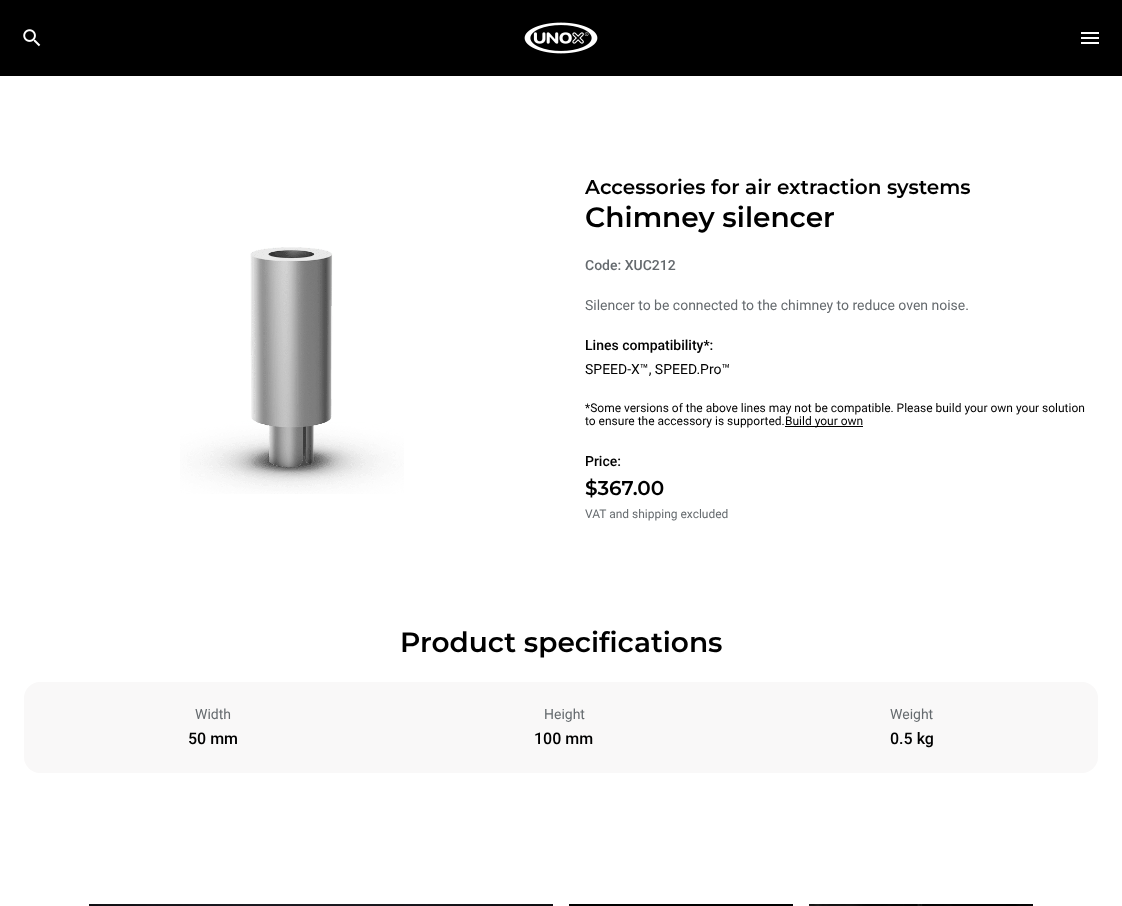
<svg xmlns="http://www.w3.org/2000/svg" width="1122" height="906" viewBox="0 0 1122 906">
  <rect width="100%" height="100%" fill="#ffffff"/>
  <rect x="0" y="0" width="1122" height="76" fill="#000000"/>
  <image x="23" y="29" width="18" height="18" href="img1.png"/>
  <image x="524" y="22" width="74" height="32" href="img2.png"/>
  <image x="1081" y="32" width="18" height="12" href="img3.png"/>
  <image x="180" y="247" width="224" height="247" href="img4.png"/>
  <text x="585" y="194" font-family="Montserrat" font-size="20" font-weight="600" fill="#000000">Accessories for air extraction systems</text>
  <text x="585" y="227" font-family="Montserrat" font-size="28" font-weight="600" fill="#000000">Chimney silencer</text>
  <text x="585" y="270" font-family="Roboto" font-size="14" font-weight="500" fill="#656a6e">Code: XUC212</text>
  <text x="585" y="310" font-family="Roboto" font-size="14" fill="#656a6e">Silencer to be connected to the chimney to reduce oven noise.</text>
  <text x="585" y="350" font-family="Roboto" font-size="14" font-weight="500" fill="#000000">Lines compatibility*:</text>
  <text x="585" y="374" font-family="Roboto" font-size="14" fill="#000000">SPEED-X™, SPEED.Pro™</text>
  <text x="585" y="412" font-family="Roboto" font-size="12" fill="#000000">*Some versions of the above lines may not be compatible. Please build your own your solution</text>
  <text x="585" y="425" font-family="Roboto" font-size="12" fill="#000000">to ensure the accessory is supported.</text>
  <rect x="785" y="426" width="78" height="1" fill="#000000"/>
  <text x="785" y="425" font-family="Roboto" font-size="12" fill="#000000">Build your own</text>
  <text x="585" y="466" font-family="Roboto" font-size="14" font-weight="500" fill="#000000">Price:</text>
  <text x="585" y="495" font-family="Montserrat" font-size="20" font-weight="600" fill="#000000">$367.00</text>
  <text x="585" y="518" font-family="Roboto" font-size="12" fill="#656a6e">VAT and shipping excluded</text>
  <text x="400" y="652" font-family="Montserrat" font-size="28" font-weight="600" fill="#000000">Product specifications</text>
  <rect x="24" y="682" width="1074" height="91" rx="16" fill="#f9f8f8"/>
  <text x="195" y="719" font-family="Roboto" font-size="14" fill="#656a6e">Width</text>
  <text x="188" y="744" font-family="Roboto" font-size="16" font-weight="500" fill="#000000">50 mm</text>
  <text x="544" y="719" font-family="Roboto" font-size="14" fill="#656a6e">Height</text>
  <text x="534" y="744" font-family="Roboto" font-size="16" font-weight="500" fill="#000000">100 mm</text>
  <text x="890" y="719" font-family="Roboto" font-size="14" fill="#656a6e">Weight</text>
  <text x="890" y="744" font-family="Roboto" font-size="16" font-weight="500" fill="#000000">0.5 kg</text>
  <image x="89" y="904" width="464" height="2" href="img5.png"/>
  <rect x="569" y="904" width="224" height="2" fill="#000000"/>
  <image x="809" y="904" width="224" height="2" href="img6.png"/>
</svg>
